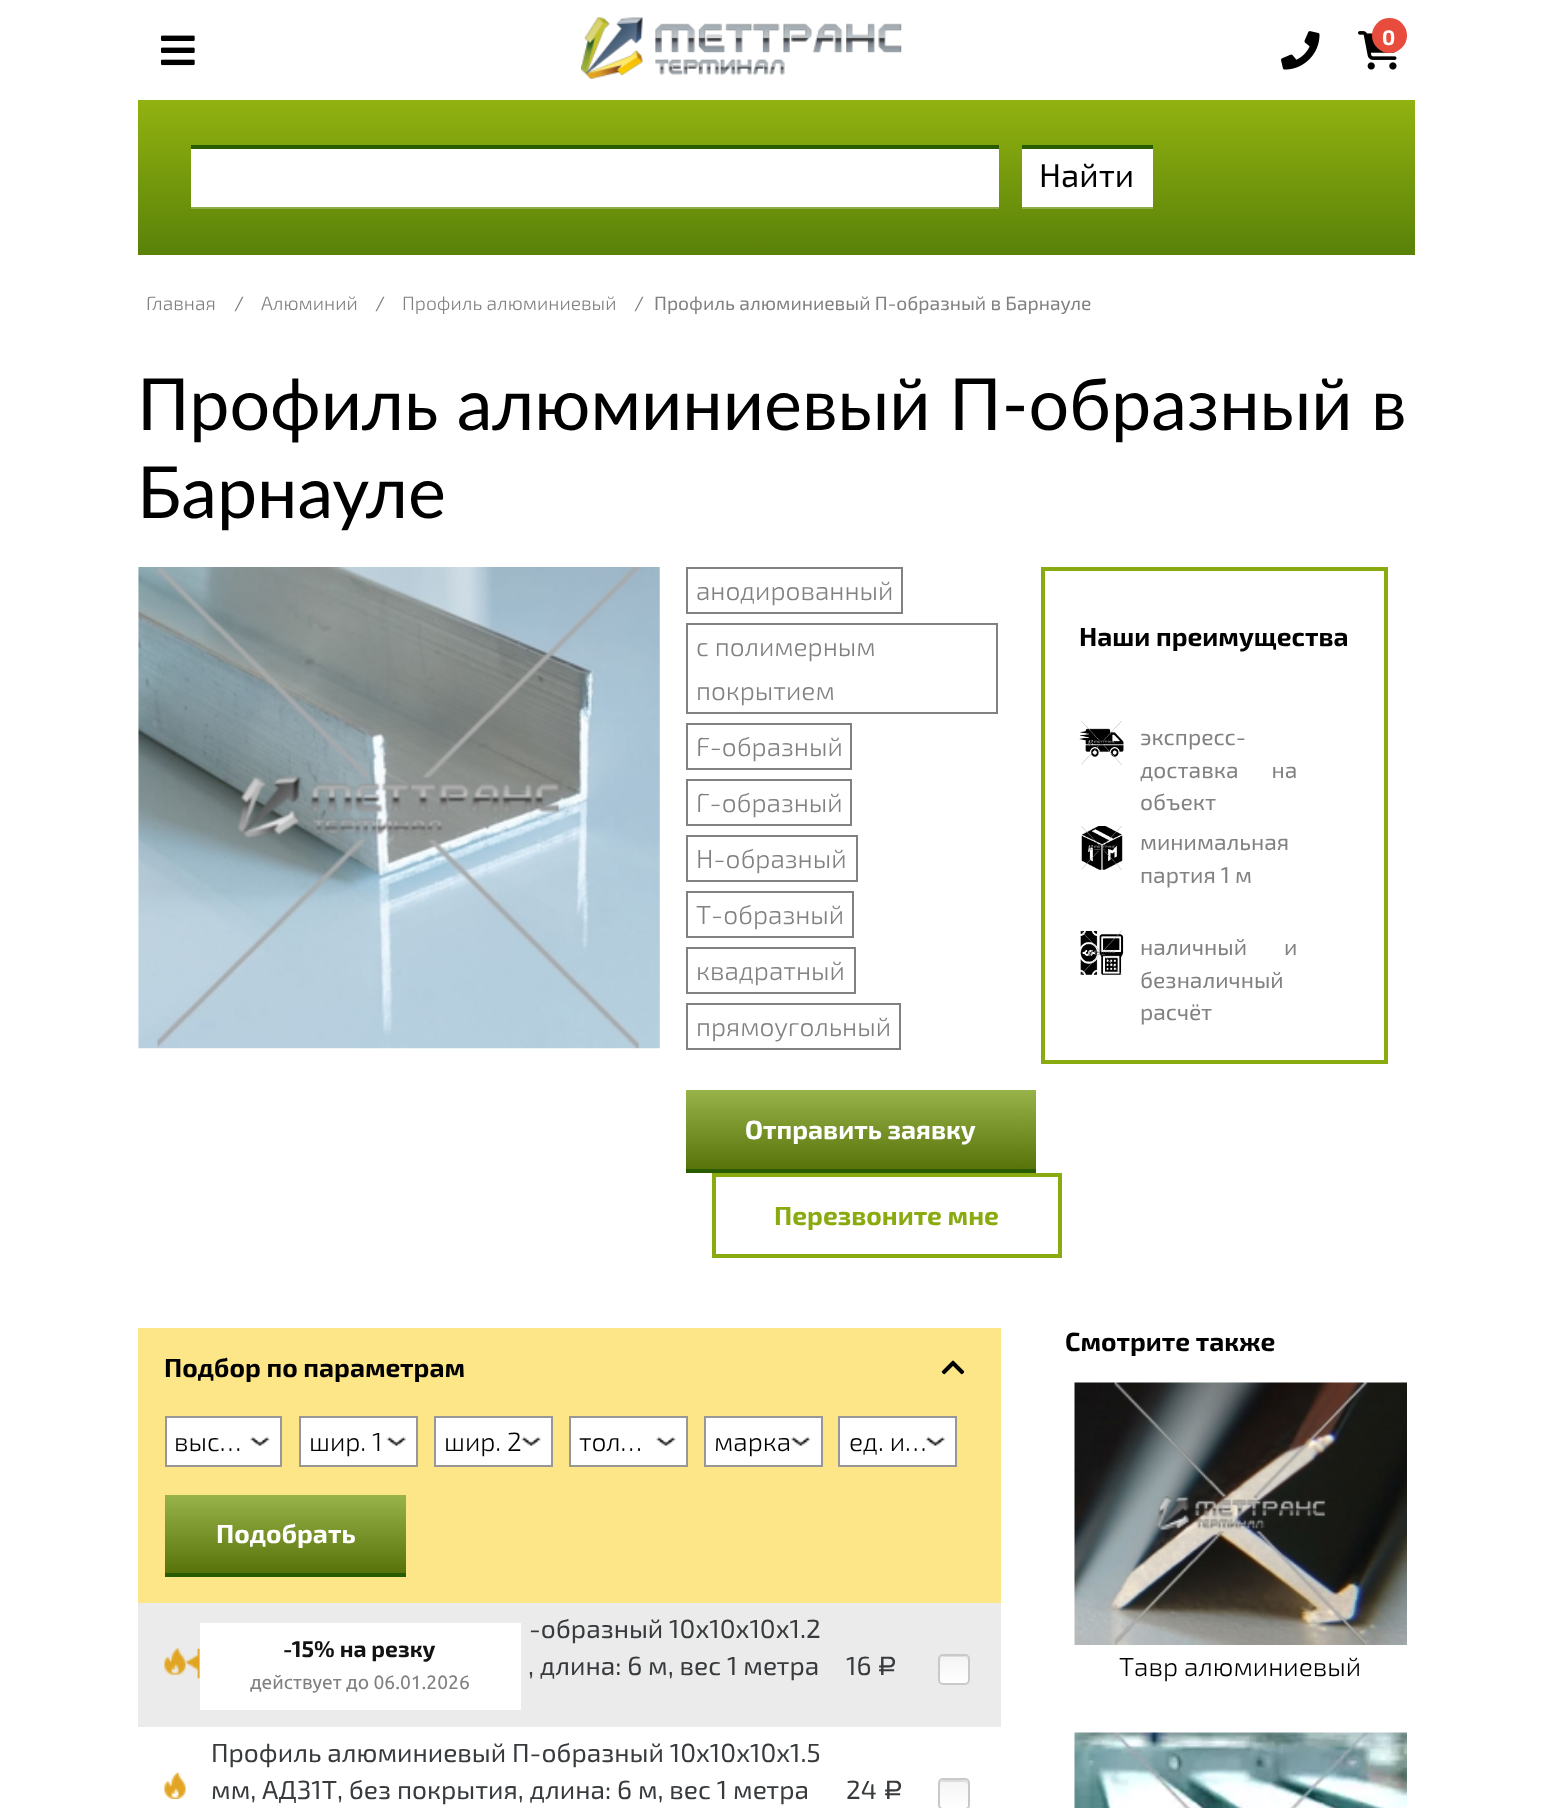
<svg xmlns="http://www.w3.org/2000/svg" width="1551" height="1808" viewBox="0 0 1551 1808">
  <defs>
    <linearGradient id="g1" gradientUnits="userSpaceOnUse" x1="777" y1="100" x2="777" y2="256"><stop offset="0" stop-color="#92b210"/><stop offset="1" stop-color="#598109"/></linearGradient>
    <linearGradient id="g2" gradientUnits="userSpaceOnUse" x1="861" y1="1090" x2="861" y2="1169"><stop offset="0" stop-color="#98b34a"/><stop offset="1" stop-color="#58730a"/></linearGradient>
    <linearGradient id="g3" gradientUnits="userSpaceOnUse" x1="285" y1="1495" x2="285" y2="1573"><stop offset="0" stop-color="#98b34a"/><stop offset="1" stop-color="#58730a"/></linearGradient>
    <clipPath id="clip1"><rect x="938" y="1654" width="32" height="31" rx="5"/></clipPath>
    <linearGradient id="g4" gradientUnits="userSpaceOnUse" x1="954" y1="1656" x2="954" y2="1684"><stop offset="0" stop-color="#f4f4f4"/><stop offset="1" stop-color="#ffffff"/></linearGradient>
    <clipPath id="clip2"><rect x="938" y="1778" width="32" height="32" rx="5"/></clipPath>
    <linearGradient id="g5" gradientUnits="userSpaceOnUse" x1="954" y1="1780" x2="954" y2="1808"><stop offset="0" stop-color="#f4f4f4"/><stop offset="1" stop-color="#ffffff"/></linearGradient>
  </defs>
  <rect width="100%" height="100%" fill="#ffffff"/>
  <image x="161" y="35" width="34" height="31" href="img1.png"/>
  <image x="581" y="17" width="321" height="62" href="img2.png"/>
  <image x="1281" y="31" width="39" height="39" href="img3.png"/>
  <image x="1358" y="31" width="40" height="39" href="img4.png"/>
  <circle cx="1389.5" cy="35.5" r="17.5" fill="#e74c3c"/>
  <text x="1382" y="45" font-family="'Exo 2'" font-size="21" font-weight="bold" fill="#ffffff">0</text>
  <rect x="138" y="100" width="1277" height="155" fill="url(#g1)"/>
  <rect x="191" y="149" width="808" height="58" fill="#ffffff"/>
  <rect x="191" y="145" width="808" height="4" fill="#295b01"/>
  <rect x="191" y="207" width="808" height="2" fill="#8fab48"/>
  <rect x="1022" y="149" width="131" height="58" fill="#ffffff"/>
  <rect x="1022" y="145" width="131" height="4" fill="#295b01"/>
  <rect x="1022" y="207" width="131" height="2" fill="#8fab48"/>
  <text x="1039" y="187" font-family="'Exo 2'" font-size="33" fill="#000000">Найти</text>
  <text x="146" y="310" font-family="'Exo 2'" font-size="19.25" font-weight="300" fill="#818181">Главная</text>
  <text x="234" y="310" font-family="'Exo 2'" font-size="19.25" fill="#818181">/</text>
  <text x="261" y="310" font-family="'Exo 2'" font-size="19.25" font-weight="300" fill="#818181">Алюминий</text>
  <text x="375" y="310" font-family="'Exo 2'" font-size="19.25" fill="#818181">/</text>
  <text x="402" y="310" font-family="'Exo 2'" font-size="19.25" font-weight="300" fill="#818181">Профиль алюминиевый</text>
  <text x="634" y="310" font-family="'Exo 2'" font-size="19.25" fill="#818181">/</text>
  <text x="654" y="310" font-family="'Exo 2'" font-size="19.25" fill="#818181">Профиль алюминиевый П-образный в Барнауле</text>
  <text x="137" y="430" font-family="Lato" font-size="71.75" fill="#000000">Профиль алюминиевый П-образный в</text>
  <text x="137" y="518" font-family="Lato" font-size="71.75" fill="#000000">Барнауле</text>
  <image x="138" y="567" width="522" height="482" href="img5.png"/>
  <rect x="687" y="568" width="215" height="45" fill="none" stroke="#818181" stroke-width="2"/>
  <text x="696" y="600" font-family="'Exo 2'" font-size="26.25" font-weight="300" fill="#818181">анодированный</text>
  <rect x="687" y="624" width="310" height="89" fill="none" stroke="#818181" stroke-width="2"/>
  <text x="696" y="656" font-family="'Exo 2'" font-size="26.25" font-weight="300" fill="#818181">с полимерным</text>
  <text x="696" y="700" font-family="'Exo 2'" font-size="26.25" font-weight="300" fill="#818181">покрытием</text>
  <rect x="687" y="724" width="164" height="45" fill="none" stroke="#818181" stroke-width="2"/>
  <text x="696" y="756" font-family="'Exo 2'" font-size="26.25" font-weight="300" fill="#818181">F-образный</text>
  <rect x="687" y="780" width="164" height="45" fill="none" stroke="#818181" stroke-width="2"/>
  <text x="696" y="812" font-family="'Exo 2'" font-size="26.25" font-weight="300" fill="#818181">Г-образный</text>
  <rect x="687" y="836" width="170" height="45" fill="none" stroke="#818181" stroke-width="2"/>
  <text x="696" y="868" font-family="'Exo 2'" font-size="26.25" font-weight="300" fill="#818181">Н-образный</text>
  <rect x="687" y="892" width="166" height="45" fill="none" stroke="#818181" stroke-width="2"/>
  <text x="696" y="924" font-family="'Exo 2'" font-size="26.25" font-weight="300" fill="#818181">Т-образный</text>
  <rect x="687" y="948" width="168" height="45" fill="none" stroke="#818181" stroke-width="2"/>
  <text x="696" y="980" font-family="'Exo 2'" font-size="26.25" font-weight="300" fill="#818181">квадратный</text>
  <rect x="687" y="1004" width="213" height="45" fill="none" stroke="#818181" stroke-width="2"/>
  <text x="696" y="1036" font-family="'Exo 2'" font-size="26.25" font-weight="300" fill="#818181">прямоугольный</text>
  <rect x="686" y="1090" width="350" height="79" fill="url(#g2)"/>
  <rect x="686" y="1169" width="350" height="4" fill="#295b01"/>
  <text x="745" y="1139" font-family="'Exo 2'" font-size="26.25" font-weight="bold" fill="#ffffff">Отправить заявку</text>
  <rect x="714" y="1175" width="346" height="81" fill="none" stroke="#8aab0f" stroke-width="4"/>
  <text x="774" y="1225" font-family="'Exo 2'" font-size="26.25" font-weight="bold" fill="#8aab0f">Перезвоните мне</text>
  <rect x="1043" y="569" width="343" height="493" fill="none" stroke="#8aab0f" stroke-width="4"/>
  <text x="1079" y="646" font-family="'Exo 2'" font-size="26.25" font-weight="bold" fill="#000000">Наши преимущества</text>
  <image x="1079" y="721" width="45" height="44" href="img6.png"/>
  <text x="1140" y="745" font-family="'Exo 2'" font-size="22.75" fill="#818181">экспресс-</text>
  <text x="1140" y="778" word-spacing="28" font-family="'Exo 2'" font-size="22.75" fill="#818181">доставка на</text>
  <text x="1140" y="810" font-family="'Exo 2'" font-size="22.75" fill="#818181">объект</text>
  <image x="1081" y="826" width="42" height="44" href="img7.png"/>
  <text x="1140" y="850" font-family="'Exo 2'" font-size="22.75" fill="#818181">минимальная</text>
  <text x="1140" y="883" font-family="'Exo 2'" font-size="22.75" fill="#818181">партия 1 м</text>
  <image x="1080" y="931" width="44" height="44" href="img8.png"/>
  <text x="1140" y="955" word-spacing="32" font-family="'Exo 2'" font-size="22.75" fill="#818181">наличный и</text>
  <text x="1140" y="988" font-family="'Exo 2'" font-size="22.75" fill="#818181">безналичный</text>
  <text x="1140" y="1020" font-family="'Exo 2'" font-size="22.75" fill="#818181">расчёт</text>
  <rect x="138" y="1328" width="863" height="275" fill="#fde687"/>
  <text x="164" y="1377" font-family="'Exo 2'" font-size="26.25" font-weight="bold" fill="#000000">Подбор по параметрам</text>
  <image x="941" y="1360" width="24" height="15" href="img9.png"/>
  <rect x="166" y="1417" width="115" height="49" fill="#ffffff" stroke="#979797" stroke-width="2"/>
  <text x="174" y="1451" font-family="'Exo 2'" font-size="26.25" font-weight="300" fill="#000000">выс…</text>
  <image x="250" y="1436" width="20" height="10" href="img10.png"/>
  <rect x="300" y="1417" width="117" height="49" fill="#ffffff" stroke="#979797" stroke-width="2"/>
  <text x="309" y="1451" font-family="'Exo 2'" font-size="26.25" font-weight="300" fill="#000000">шир. 1</text>
  <image x="386" y="1436" width="20" height="10" href="img11.png"/>
  <rect x="435" y="1417" width="117" height="49" fill="#ffffff" stroke="#979797" stroke-width="2"/>
  <text x="444" y="1451" font-family="'Exo 2'" font-size="26.25" font-weight="300" fill="#000000">шир. 2</text>
  <image x="521" y="1436" width="20" height="10" href="img12.png"/>
  <rect x="570" y="1417" width="117" height="49" fill="#ffffff" stroke="#979797" stroke-width="2"/>
  <text x="579" y="1451" font-family="'Exo 2'" font-size="26.25" font-weight="300" fill="#000000">тол…</text>
  <image x="656" y="1436" width="20" height="10" href="img10.png"/>
  <rect x="705" y="1417" width="117" height="49" fill="#ffffff" stroke="#979797" stroke-width="2"/>
  <text x="714" y="1451" font-family="'Exo 2'" font-size="26.25" font-weight="300" fill="#000000">марка</text>
  <image x="791" y="1436" width="20" height="10" href="img13.png"/>
  <rect x="839" y="1417" width="117" height="49" fill="#ffffff" stroke="#979797" stroke-width="2"/>
  <text x="849" y="1451" font-family="'Exo 2'" font-size="26.25" font-weight="300" fill="#000000">ед. и…</text>
  <image x="925" y="1436" width="20" height="10" href="img11.png"/>
  <rect x="165" y="1495" width="241" height="78" fill="url(#g3)"/>
  <rect x="165" y="1573" width="241" height="4" fill="#295b01"/>
  <text x="216" y="1543" font-family="'Exo 2'" font-size="26.25" font-weight="bold" fill="#ffffff">Подобрать</text>
  <rect x="138" y="1603" width="863" height="124" fill="#ebebeb"/>
  <image x="164" y="1648" width="22" height="27" href="img14.png"/>
  <text x="529" y="1638" font-family="'Exo 2'" font-size="26.25" fill="#383b3d">-образный 10x10x10x1.2</text>
  <text x="528" y="1675" font-family="'Exo 2'" font-size="26.25" fill="#383b3d">, длина: 6 м, вес 1 метра</text>
  <text x="846" y="1675" font-family="'Exo 2'" font-size="26.25" fill="#383b3d">16</text>
  <text x="877" y="1675" font-family="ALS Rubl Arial" font-size="26.25" fill="#383b3d">Р</text>
  <g clip-path="url(#clip1)">
    <rect x="938" y="1656" width="32" height="28" fill="url(#g4)"/>
  </g>
  <path d="M943 1657H964C966 1657 968 1659 968 1661C968 1656 965 1656 960.5 1656H947.5C943 1656 940 1656 940 1661C940 1659 941 1657 943 1657Z" fill="#dddddd"/>
  <rect x="939" y="1655" width="30" height="29" rx="4" fill="none" stroke="#c9c9c9" stroke-width="2"/>
  <image x="164" y="1772" width="22" height="27" href="img15.png"/>
  <text x="211" y="1762" font-family="'Exo 2'" font-size="26.25" fill="#383b3d">Профиль алюминиевый П-образный 10x10x10x1.5</text>
  <text x="211" y="1799" font-family="'Exo 2'" font-size="26.25" fill="#383b3d">мм, АД31Т, без покрытия, длина: 6 м, вес 1 метра</text>
  <text x="846" y="1799" font-family="'Exo 2'" font-size="26.25" fill="#383b3d">24</text>
  <text x="883" y="1799" font-family="ALS Rubl Arial" font-size="26.25" fill="#383b3d">Р</text>
  <g clip-path="url(#clip2)">
    <rect x="938" y="1780" width="32" height="28" fill="url(#g5)"/>
  </g>
  <path d="M943 1782H964C966 1782 968 1783 968 1785C968 1780 965 1780 960.5 1780H947.5C943 1780 940 1780 940 1785C940 1783 941 1782 943 1782Z" fill="#dddddd"/>
  <rect x="939" y="1779" width="30" height="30" rx="4" fill="none" stroke="#c9c9c9" stroke-width="2"/>
  <text x="1065" y="1351" font-family="'Exo 2'" font-size="26.25" font-weight="bold" fill="#000000">Смотрите также</text>
  <image x="1074" y="1382" width="333" height="263" href="img16.png"/>
  <text x="1119" y="1676" font-family="'Exo 2'" font-size="26.25" font-weight="300" fill="#000000">Тавр алюминиевый</text>
  <image x="1074" y="1732" width="333" height="76" href="img17.png"/>
  <image x="185" y="1648" width="15" height="31" href="img18.png"/>
  <rect x="200" y="1623" width="321" height="87" fill="#ffffff"/>
  <text x="283" y="1657" font-family="'Exo 2'" font-size="22.75" font-weight="bold" fill="#121212">-15% на резку</text>
  <text x="250" y="1689" font-family="Ubuntu" font-size="19.25" fill="#818181">действует до 06.01.2026</text>
</svg>
